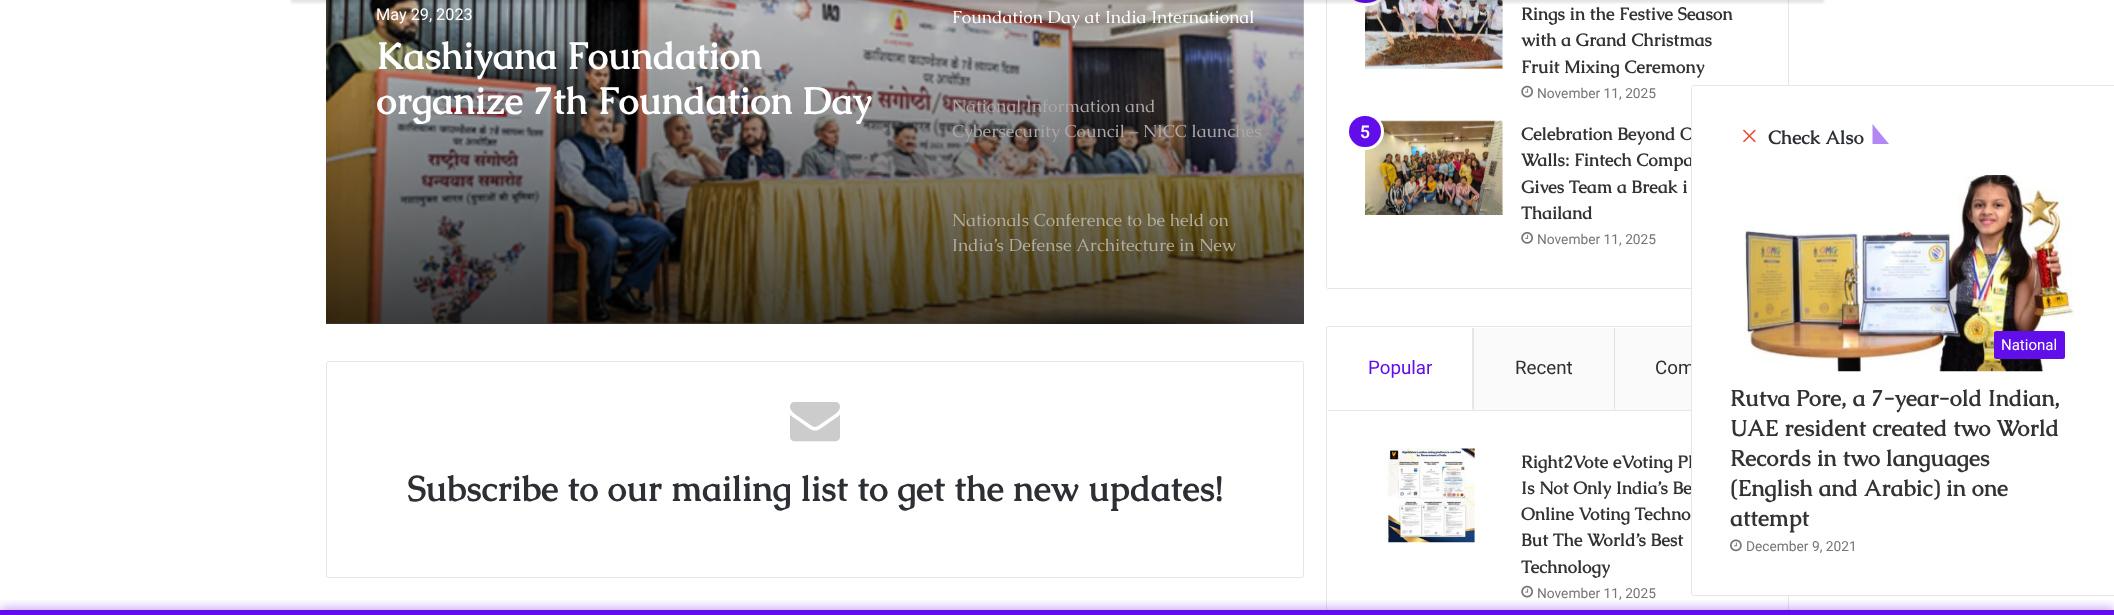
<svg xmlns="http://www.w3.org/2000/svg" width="2114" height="615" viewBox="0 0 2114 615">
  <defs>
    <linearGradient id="g1" gradientUnits="userSpaceOnUse" x1="815" y1="-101" x2="815" y2="324"><stop offset="0" stop-color="#000000" stop-opacity="0"/><stop offset="1" stop-color="#000000" stop-opacity="0.75"/></linearGradient>
    <filter id="blur1" x="-50%" y="-200%" width="200%" height="500%"><feGaussianBlur stdDeviation="1"/></filter>
    <clipPath id="clip1"><rect x="376" y="34" width="527" height="90"/></clipPath>
    <radialGradient id="g2" gradientUnits="userSpaceOnUse" cx="0" cy="0" r="1" gradientTransform="matrix(277 0 0 35 1108 330)"><stop offset="0" stop-color="#000000" stop-opacity="0.8"/><stop offset="0.65" stop-color="#000000" stop-opacity="0"/><stop offset="1" stop-color="#e5e5e5" stop-opacity="0"/></radialGradient>
    <filter id="blur2" x="-50%" y="-200%" width="200%" height="500%"><feGaussianBlur stdDeviation="6"/></filter>
  </defs>
  <rect width="100%" height="100%" fill="#ffffff"/>
  <image x="326" y="0" width="978" height="324" href="img1.png"/>
  <rect x="326" y="0" width="978" height="324" fill="url(#g1)"/>
  <rect x="1326.5" y="-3.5" width="462" height="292" rx="2" fill="none" stroke="#e6e6e6"/>
  <image x="1365" y="0" width="138" height="69" href="img3.png"/>
  <rect x="1346.5" y="-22.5" width="38" height="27" rx="19" fill="#620eea" stroke="#ffffff" stroke-width="3"/>
  <rect x="291" y="-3" width="1533" height="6" fill="#000000" fill-opacity="0.1" filter="url(#blur1)"/>
  <text x="376" y="20" font-family="Roboto" font-size="16.25" fill="#ffffff">May 29, 2023</text>
  <text x="376" y="69" font-family="Caudex" font-size="37.5" font-weight="bold" fill="#ffffff">Kashiyana Foundation</text>
  <g clip-path="url(#clip1)">
    <text x="376" y="114" font-family="Caudex" font-size="37.5" font-weight="bold" fill="#ffffff">organize 7th Foundation Day</text>
  </g>
  <text x="952" y="23" font-family="Caudex" font-size="17.5" fill="#ffffff">Foundation Day at India International</text>
  <text x="952" y="112" font-family="Caudex" font-size="17.5" fill="#aca6a7">National Information and</text>
  <text x="952" y="137" font-family="Caudex" font-size="17.5" fill="#aca6a7">Cybersecurity Council – NICC launches</text>
  <text x="952" y="226" font-family="Caudex" font-size="17.5" fill="#b2ad9c">Nationals Conference to be held on</text>
  <text x="952" y="251" font-family="Caudex" font-size="17.5" fill="#b2ad9c">India’s Defense Architecture in New</text>
  <rect x="945" y="308" width="326" height="16" fill="url(#g2)"/>
  <rect x="326.5" y="361.5" width="977" height="216" rx="2" fill="none" stroke="#e6e6e6"/>
  <image x="790" y="402" width="50" height="40" href="img2.png"/>
  <text x="407" y="501" font-family="Caudex" font-size="35" font-weight="bold" fill="#2c2f34">Subscribe to our mailing list to get the new updates!</text>
  <text x="1521" y="20" font-family="Caudex" font-size="17.5" font-weight="bold" fill="#333333">Rings in the Festive Season</text>
  <text x="1521" y="46" font-family="Caudex" font-size="17.5" font-weight="bold" fill="#333333">with a Grand Christmas</text>
  <text x="1521" y="73" font-family="Caudex" font-size="17.5" font-weight="bold" fill="#333333">Fruit Mixing Ceremony</text>
  <image x="1521" y="85" width="12" height="13" href="img4.png"/>
  <text x="1537" y="98" font-family="Roboto" font-size="13.75" fill="#767676">November 11, 2025</text>
  <image x="1365" y="120" width="138" height="95" href="img5.png"/>
  <rect x="1347.5" y="114.5" width="35" height="34" rx="17" fill="#620eea" stroke="#ffffff" stroke-width="3"/>
  <text x="1360" y="138" font-family="Roboto" font-size="17.5" font-weight="600" fill="#ffffff">5</text>
  <text x="1521" y="140" font-family="Caudex" font-size="17.5" font-weight="bold" fill="#333333">Celebration Beyond O</text>
  <text x="1521" y="166" font-family="Caudex" font-size="17.5" font-weight="bold" fill="#333333">Walls: Fintech Compa</text>
  <text x="1521" y="193" font-family="Caudex" font-size="17.5" font-weight="bold" fill="#333333">Gives Team a Break i</text>
  <text x="1521" y="219" font-family="Caudex" font-size="17.5" font-weight="bold" fill="#333333">Thailand</text>
  <image x="1521" y="232" width="12" height="12" href="img6.png"/>
  <text x="1537" y="244" font-family="Roboto" font-size="13.75" fill="#767676">November 11, 2025</text>
  <rect x="1326.5" y="326.5" width="462" height="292" rx="2" fill="none" stroke="#e6e6e6"/>
  <rect x="1328" y="410" width="363" height="1" fill="#e6e6e6"/>
  <path d="M1474 328V410L1472 409V328Z" fill="#e6e6e6"/>
  <text x="1368" y="374" font-family="Roboto" font-size="18.75" fill="#620eea">Popular</text>
  <rect x="1474" y="328" width="217" height="82" fill="#fafafa"/>
  <path d="M1615 328V410L1614 409V328Z" fill="#e1e1e1"/>
  <text x="1515" y="374" font-family="Roboto" font-size="18.75" fill="#2c2f34">Recent</text>
  <text x="1655" y="374" font-family="Roboto" font-size="18.75" fill="#2c2f34">Com</text>
  <image x="1385" y="448" width="90" height="95" href="img7.png"/>
  <text x="1521" y="468" font-family="Caudex" font-size="17.5" font-weight="bold" fill="#333333">Right2Vote eVoting Pl</text>
  <text x="1521" y="494" font-family="Caudex" font-size="17.5" font-weight="bold" fill="#333333">Is Not Only India’s Be</text>
  <text x="1521" y="520" font-family="Caudex" font-size="17.5" font-weight="bold" fill="#333333">Online Voting Techno</text>
  <text x="1521" y="546" font-family="Caudex" font-size="17.5" font-weight="bold" fill="#333333">But The World’s Best</text>
  <text x="1521" y="573" font-family="Caudex" font-size="17.5" font-weight="bold" fill="#333333">Technology</text>
  <image x="1521" y="585" width="12" height="13" href="img4.png"/>
  <text x="1537" y="598" font-family="Roboto" font-size="13.75" fill="#767676">November 11, 2025</text>
  <path d="M1693.5 85.5H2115.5V595.5H1693.5C1692.5 595.5 1691.5 594.5 1691.5 593.5V87.5C1691.5 86.5 1692.5 85.5 1693.5 85.5Z" fill="#ffffff" stroke="#e6e6e6"/>
  <image x="1743" y="129" width="13" height="14" href="img8.png"/>
  <text x="1768" y="144" font-family="Caudex" font-size="18.75" font-weight="bold" fill="#2c2f34">Check Also</text>
  <path d="M1872.5 144V124L1889 144Z" fill="#b188f5"/>
  <image x="1744" y="175" width="330" height="197" href="img9.png"/>
  <rect x="1994" y="331" width="71" height="28" rx="2.5" fill="#620eea"/>
  <text x="2001" y="350" font-family="Roboto" font-size="15" fill="#ffffff">National</text>
  <text x="1730" y="406" font-family="Caudex" font-size="22.5" font-weight="bold" fill="#333333">Rutva Pore, a 7-year-old Indian,</text>
  <text x="1730" y="436" font-family="Caudex" font-size="22.5" font-weight="bold" fill="#333333">UAE resident created two World</text>
  <text x="1730" y="466" font-family="Caudex" font-size="22.5" font-weight="bold" fill="#333333">Records in two languages</text>
  <text x="1730" y="496" font-family="Caudex" font-size="22.5" font-weight="bold" fill="#333333">(English and Arabic) in one</text>
  <text x="1730" y="526" font-family="Caudex" font-size="22.5" font-weight="bold" fill="#333333">attempt</text>
  <image x="1730" y="539" width="12" height="13" href="img10.png"/>
  <text x="1746" y="551" font-family="Roboto" font-size="13.75" fill="#767676">December 9, 2021</text>
  <rect x="0" y="610" width="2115" height="5" fill="#620eea" fill-opacity="0.7" filter="url(#blur2)"/>
  <rect x="0" y="610" width="2114" height="5" fill="#620eea"/>
</svg>
